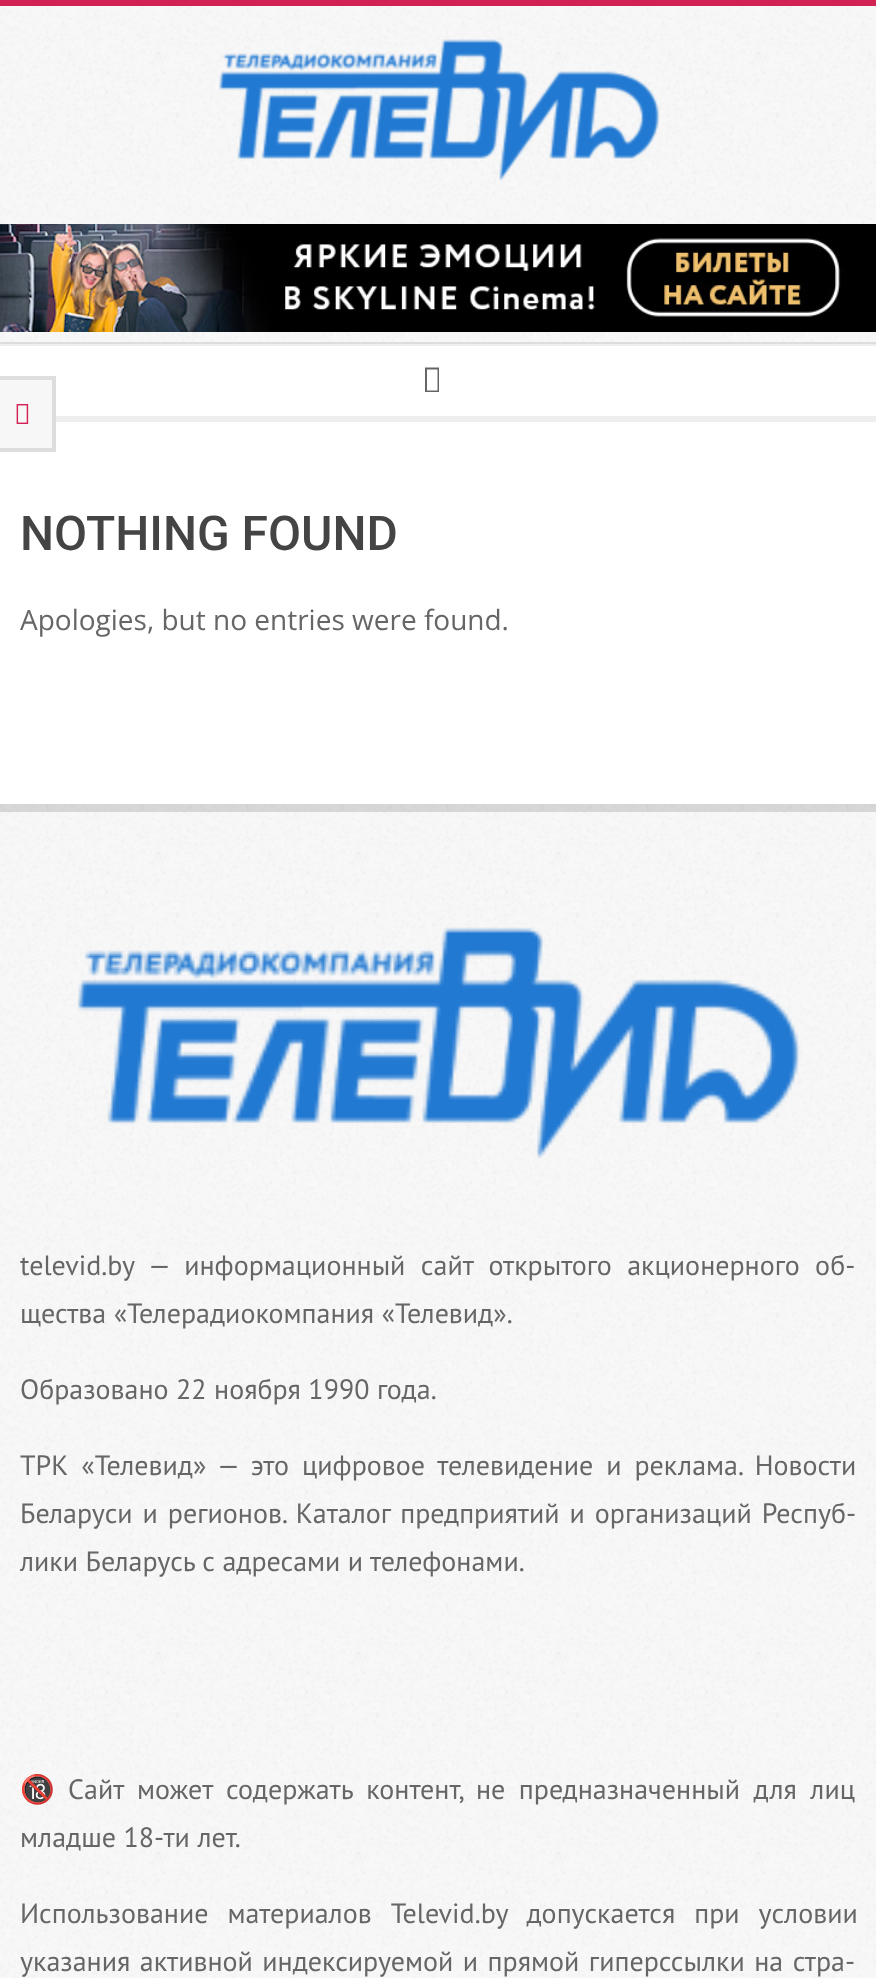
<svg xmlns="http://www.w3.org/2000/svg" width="876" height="1978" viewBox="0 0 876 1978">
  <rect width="100%" height="100%" fill="#f7f7f7"/>
  <image x="0" y="6" width="876" height="1972" href="img1.png"/>
  <rect x="0" y="0" width="876" height="6" fill="#d22254"/>
  <rect x="0" y="342" width="876" height="2" fill="#dddddd"/>
  <image x="219" y="39" width="441" height="142" href="img2.png"/>
  <image x="0" y="224" width="876" height="108" href="img3.png"/>
  <rect x="0" y="346" width="876" height="70" fill="#ffffff"/>
  <rect x="56" y="416" width="820" height="6" fill="#eeeeee"/>
  <rect x="0" y="344" width="876" height="2" fill="#eeeeee"/>
  <path d="M425 392V367.5H439V392ZM427 390.5H437.5V369.5H427Z" fill="#666666"/>
  <rect x="0" y="422" width="876" height="382" fill="#ffffff"/>
  <rect x="0" y="376" width="56" height="76" fill="#f7f7f7"/>
  <path d="M0 376H56L52 380H0Z" fill="#dedede"/>
  <path d="M56 376V452L52 448V380Z" fill="#000000" fill-opacity="0.1"/>
  <path d="M56 452H0V448H52Z" fill="#000000" fill-opacity="0.1"/>
  <image x="16" y="404" width="13" height="20" href="img4.png"/>
  <text x="20" y="550" font-family="Roboto" font-size="48" font-weight="500" fill="#444444">NOTHING FOUND</text>
  <text x="20" y="630" font-family="Open Sans" font-size="28" fill="#666666">Apologies, but no entries were found.</text>
  <rect x="0" y="804" width="876" height="8" fill="#000000" fill-opacity="0.13"/>
  <image x="77" y="927" width="724" height="232" href="img5.png"/>
  <text x="20" y="1275" font-family="PT Sans" font-size="28" fill="#666666">televid.by</text>
  <text x="148" y="1275" word-spacing="8" font-family="PT Sans" font-size="28" fill="#666666">— информационный сайт открытого акционерного об-</text>
  <text x="20" y="1323" font-family="PT Sans" font-size="28" fill="#666666">щества «Телерадиокомпания «Телевид».</text>
  <text x="20" y="1399" font-family="PT Sans" font-size="28" fill="#666666">Образовано 22 ноября 1990 года.</text>
  <text x="20" y="1475" word-spacing="5.5" font-family="PT Sans" font-size="28" fill="#666666">ТРК «Телевид» — это цифровое телевидение и реклама. Новости</text>
  <text x="20" y="1523" word-spacing="2.5" font-family="PT Sans" font-size="28" fill="#666666">Беларуси и регионов. Каталог предприятий и организаций Респуб-</text>
  <text x="20" y="1571" font-family="PT Sans" font-size="28" fill="#666666">лики Беларусь с адресами и телефонами.</text>
  <text x="20" y="1799" font-family="Noto Color Emoji" font-size="28" fill="#666666">🔞</text>
  <text x="68" y="1799" word-spacing="6" font-family="PT Sans" font-size="28" fill="#666666">Сайт может содержать контент, не предназначенный для лиц</text>
  <text x="20" y="1847" font-family="PT Sans" font-size="28" fill="#666666">младше 18‑ти лет.</text>
  <text x="20" y="1923" word-spacing="11.5" font-family="PT Sans" font-size="28" fill="#666666">Использование материалов Televid.by допускается при условии</text>
  <text x="20" y="1971" word-spacing="2" font-family="PT Sans" font-size="28" fill="#666666">указания активной индексируемой и прямой гиперссылки на стра-</text>
</svg>
